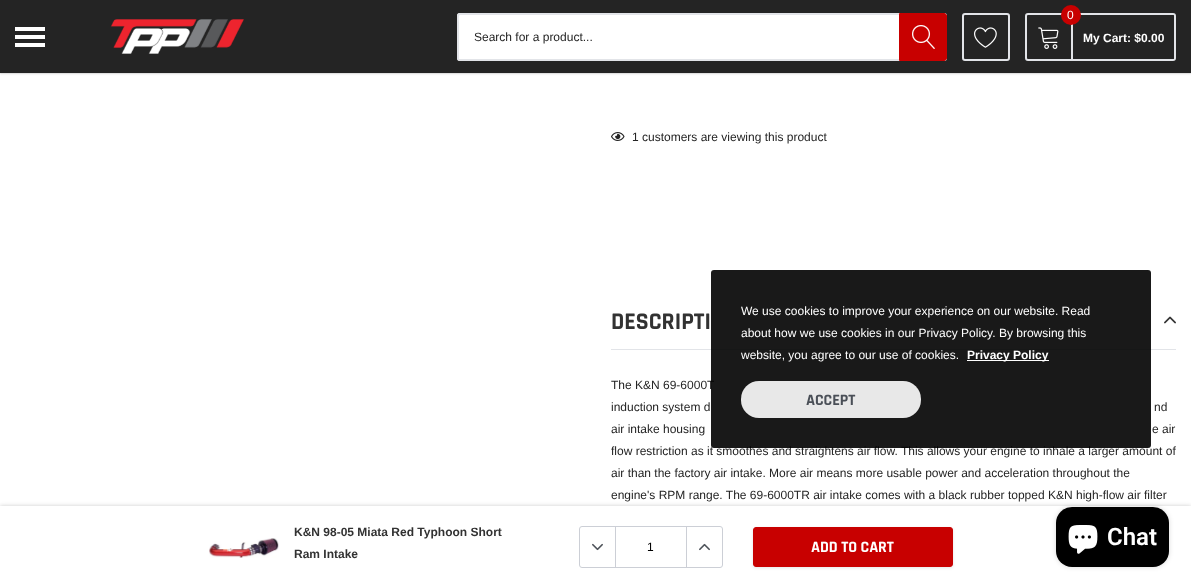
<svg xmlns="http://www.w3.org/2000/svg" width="1191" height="588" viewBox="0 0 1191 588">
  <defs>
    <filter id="blur1" x="-50%" y="-200%" width="200%" height="500%"><feGaussianBlur stdDeviation="1"/></filter>
    <filter id="blur2" x="-50%" y="-200%" width="200%" height="500%"><feGaussianBlur stdDeviation="2"/></filter>
    <filter id="blur3" x="-50%" y="-200%" width="200%" height="500%"><feGaussianBlur stdDeviation="1.5"/></filter>
    <filter id="blur4" x="-50%" y="-200%" width="200%" height="500%"><feGaussianBlur stdDeviation="2.5"/></filter>
  </defs>
  <rect width="100%" height="100%" fill="#ffffff"/>
  <rect x="0" y="1" width="1191" height="73" fill="#000000" fill-opacity="0.1" filter="url(#blur1)"/>
  <rect x="-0.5" y="-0.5" width="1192" height="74" fill="none" stroke="#000000" stroke-opacity="0.06"/>
  <rect x="0" y="0" width="1191" height="73" fill="#242424"/>
  <rect x="15" y="35" width="30" height="4" fill="#ffffff"/>
  <rect x="15" y="27" width="30" height="4" fill="#ffffff"/>
  <rect x="15" y="43" width="30" height="4" fill="#ffffff"/>
  <image x="110" y="19" width="134" height="35" href="img1.png"/>
  <rect x="457" y="13" width="490" height="48" rx="3" fill="#ffffff"/>
  <path d="M460 13H899V61H460C458 61 457 60 457 58V16C457 14 458 13 460 13ZM460 15H899V59H460H459V23C459 21 458 15 460 15Z" fill="#e2e4e8" fill-rule="evenodd"/>
  <text x="474" y="41" font-family="Arimo" font-size="12" fill="#242424">Search for a product...</text>
  <path d="M899.5 13.5H944C945.5 13.5 946.5 14.5 946.5 16V58C946.5 59.5 945.5 60.5 944 60.5H899.5Z" fill="#c80000" stroke="#c80000"/>
  <image x="912" y="25" width="23" height="24" href="img2.png"/>
  <rect x="963" y="14" width="46" height="46" rx="2" fill="none" stroke="#e2e4e8" stroke-width="2"/>
  <image x="974" y="27" width="23" height="21" href="img3.png"/>
  <path d="M1028 14H1072V60H1028C1027 60 1026 59 1026 58V16C1026 15 1027 14 1028 14Z" fill="none" stroke="#e2e4e8" stroke-width="2"/>
  <path d="M1073 13H1173C1175 13 1176 14 1176 16V58C1176 60 1175 61 1173 61H1073ZM1073 15H1173C1174 15 1174 15 1174 16V58C1174 59 1174 59 1173 59H1073Z" fill="#e2e4e8" fill-rule="evenodd"/>
  <circle cx="1071" cy="15" r="10" fill="#c80000"/>
  <text x="1067" y="19" font-family="Arimo" font-size="12" fill="#ffffff">0</text>
  <image x="1038" y="27" width="21" height="22" href="img4.png"/>
  <text x="1083" y="42" font-family="Arimo" font-size="12" font-weight="bold" fill="#ffffff">My Cart: $0.00</text>
  <image x="611" y="132" width="14" height="9" href="img5.png"/>
  <text x="632" y="141" font-family="Arimo" font-size="12" fill="#242424">1 customers are viewing this product</text>
  <rect x="0" y="506" width="1191" height="82" fill="#000000" fill-opacity="0.2" filter="url(#blur2)"/>
  <rect x="0" y="506" width="1191" height="82" fill="#ffffff"/>
  <image x="209" y="538" width="70" height="20" href="img6.png"/>
  <text x="294" y="536" font-family="Arimo" font-size="12" font-weight="bold" fill="#323232">K&amp;N 98-05 Miata Red Typhoon Short</text>
  <text x="294" y="558" font-family="Arimo" font-size="12" font-weight="bold" fill="#323232">Ram Intake</text>
  <rect x="579.5" y="526.5" width="143" height="41" rx="2.5" fill="none" stroke="#cccfd6"/>
  <rect x="615" y="527" width="1" height="40" fill="#cccfd6"/>
  <image x="592" y="543" width="11" height="8" href="img7.png"/>
  <text x="647" y="551" font-family="Arimo" font-size="12" fill="#000000">1</text>
  <rect x="686" y="527" width="1" height="40" fill="#cccfd6"/>
  <image x="699" y="543" width="11" height="8" href="img8.png"/>
  <rect x="753" y="528" width="200" height="40" rx="3" fill="#000000" fill-opacity="0.1" filter="url(#blur3)"/>
  <rect x="753.5" y="527.5" width="199" height="39" rx="2.5" fill="#c80000" stroke="#c80000"/>
  <text x="811" y="552" font-family="Rajdhani" font-size="16" font-weight="bold" fill="#ffffff">ADD TO CART</text>
  <text x="611" y="329" font-family="Rajdhani" font-size="24" font-weight="bold" fill="#323232">DESCRIPTI</text>
  <image x="1164" y="316" width="12" height="8" href="img9.png"/>
  <rect x="611" y="349" width="565" height="1" fill="#e2e4e8"/>
  <text x="611" y="389" font-family="Arimo" font-size="12" fill="#242424">The K&amp;N 69-6000T</text>
  <text x="611" y="411" font-family="Arimo" font-size="12" fill="#242424">induction system d</text>
  <text x="1154" y="411" font-family="Arimo" font-size="12" fill="#242424">nd</text>
  <text x="611" y="433" font-family="Arimo" font-size="12" fill="#242424">air intake housing</text>
  <text x="1152" y="433" font-family="Arimo" font-size="12" fill="#242424">e air</text>
  <text x="611" y="455" font-family="Arimo" font-size="12" fill="#242424">flow restriction as it smoothes and straightens air flow. This allows your engine to inhale a larger amount of</text>
  <text x="611" y="477" font-family="Arimo" font-size="12" fill="#242424">air than the factory air intake. More air means more usable power and acceleration throughout the</text>
  <text x="611" y="499" font-family="Arimo" font-size="12" fill="#242424">engine's RPM range. The 69-6000TR air intake comes with a black rubber topped K&amp;N high-flow air filter</text>
  <rect x="711" y="270" width="440" height="178" rx="3" fill="#000000" fill-opacity="0.9"/>
  <text x="741" y="315" font-family="Arimo" font-size="12" fill="#ffffff">We use cookies to improve your experience on our website. Read</text>
  <text x="741" y="337" font-family="Arimo" font-size="12" fill="#ffffff">about how we use cookies in our Privacy Policy. By browsing this</text>
  <text x="741" y="359" font-family="Arimo" font-size="12" fill="#ffffff">website, you agree to our use of cookies.</text>
  <rect x="967" y="360" width="82" height="1" fill="#ffffff"/>
  <text x="967" y="359" font-family="Arimo" font-size="12" font-weight="bold" fill="#ffffff">Privacy Policy</text>
  <rect x="741" y="381" width="180" height="37" rx="18" fill="#ffffff" fill-opacity="0.9"/>
  <text x="806" y="405" font-family="Rajdhani" font-size="16" font-weight="bold" fill="#4a4f57">ACCEPT</text>
  <rect x="1056" y="507" width="113" height="60" rx="16" fill="#000000" fill-opacity="0.15" filter="url(#blur4)"/>
  <rect x="1056" y="507" width="113" height="60" rx="16" fill="#000000"/>
  <image x="1068" y="525" width="30" height="29" href="img10.png"/>
  <text x="1107" y="545" font-family="Roboto" font-size="24" font-weight="600" fill="#ffffff">Chat</text>
</svg>
